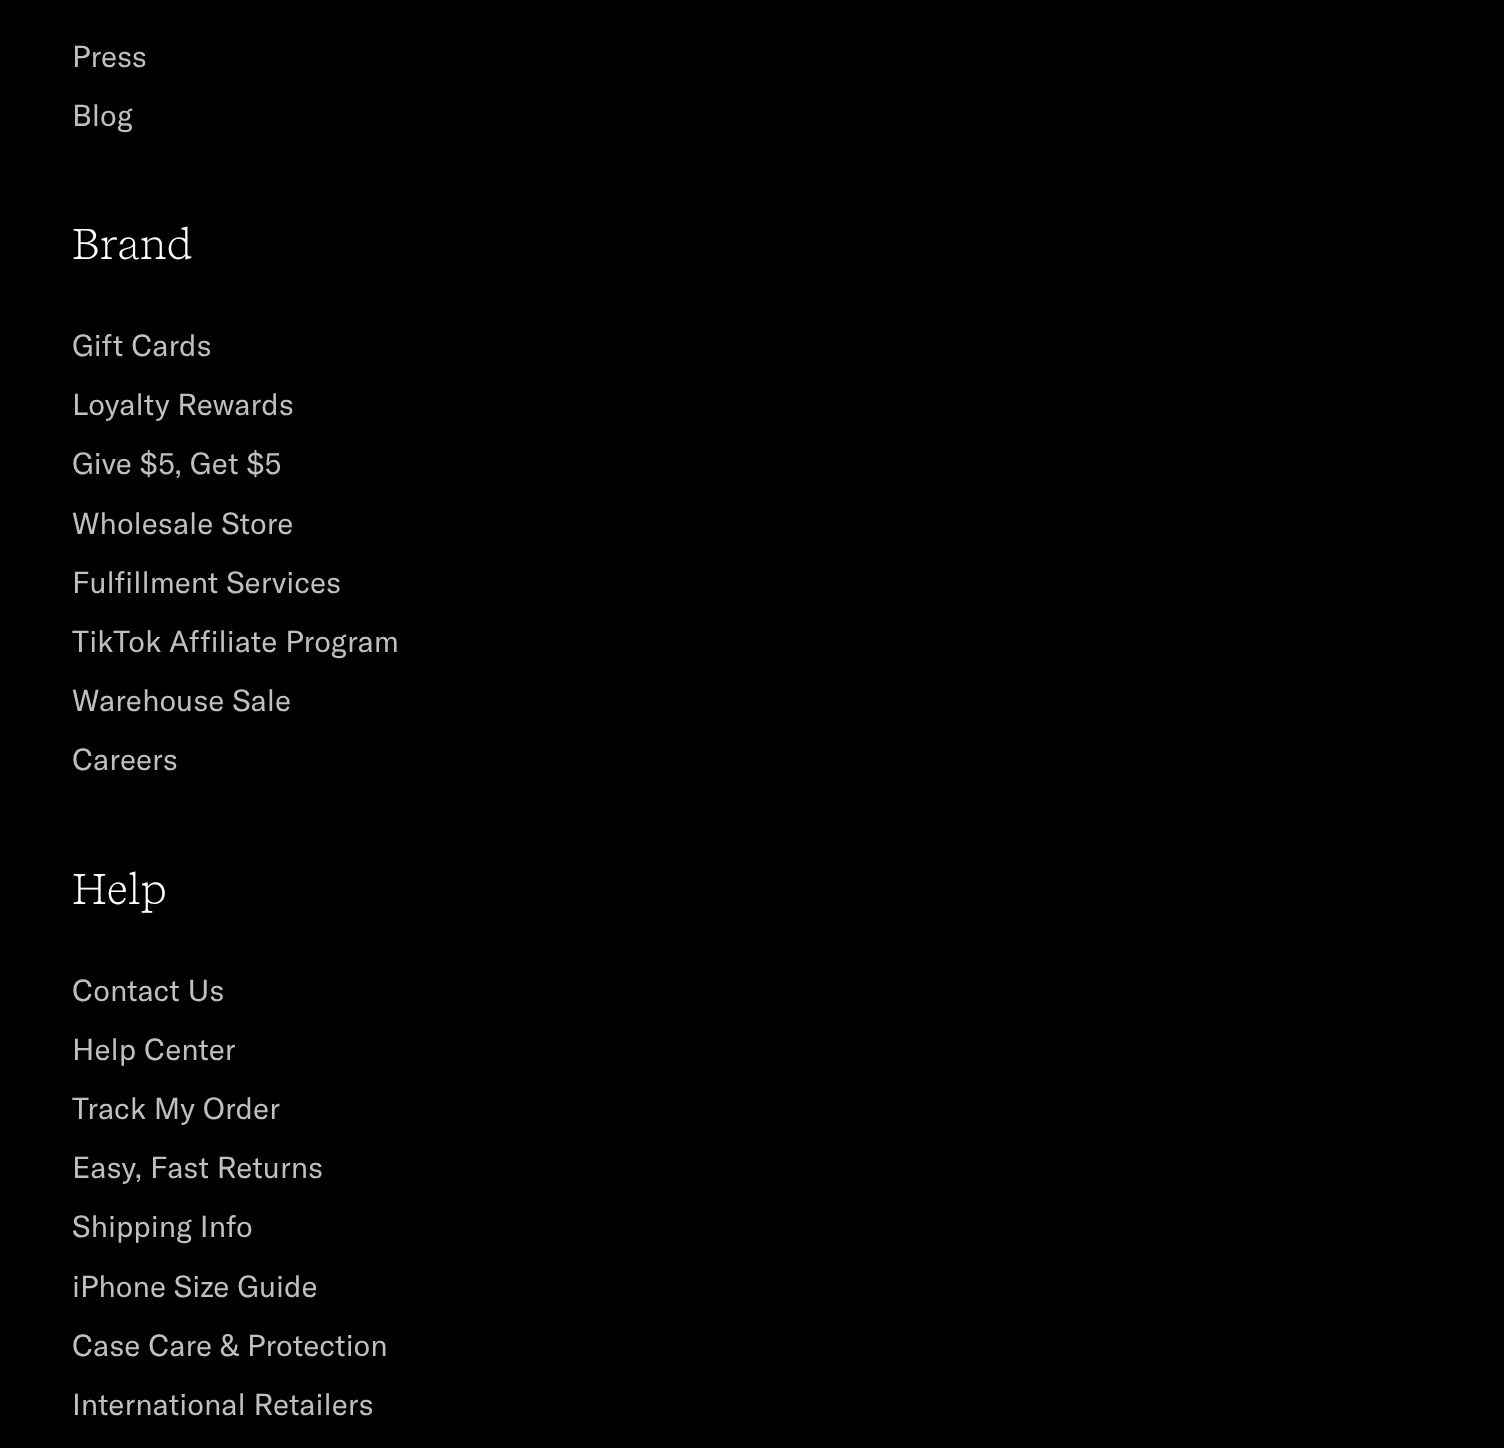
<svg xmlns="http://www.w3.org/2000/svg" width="1504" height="1448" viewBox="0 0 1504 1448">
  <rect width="100%" height="100%" fill="#000000"/>
  <text x="72" y="67" font-family="GT America" font-size="30" fill="#bfbfbf">Press</text>
  <text x="72" y="126" font-family="GT America" font-size="30" fill="#bfbfbf">Blog</text>
  <text x="72" y="259" font-family="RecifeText" font-size="43" font-weight="300" fill="#ffffff">Brand</text>
  <text x="72" y="356" font-family="GT America" font-size="30" fill="#bfbfbf">Gift Cards</text>
  <text x="72" y="415" font-family="GT America" font-size="30" fill="#bfbfbf">Loyalty Rewards</text>
  <text x="72" y="474" font-family="GT America" font-size="30" fill="#bfbfbf">Give $5, Get $5</text>
  <text x="72" y="534" font-family="GT America" font-size="30" fill="#bfbfbf">Wholesale Store</text>
  <text x="72" y="593" font-family="GT America" font-size="30" fill="#bfbfbf">Fulfillment Services</text>
  <text x="72" y="652" font-family="GT America" font-size="30" fill="#bfbfbf">TikTok Affiliate Program</text>
  <text x="72" y="711" font-family="GT America" font-size="30" fill="#bfbfbf">Warehouse Sale</text>
  <text x="72" y="770" font-family="GT America" font-size="30" fill="#bfbfbf">Careers</text>
  <text x="72" y="904" font-family="RecifeText" font-size="43" font-weight="300" fill="#ffffff">Help</text>
  <text x="72" y="1001" font-family="GT America" font-size="30" fill="#bfbfbf">Contact Us</text>
  <text x="72" y="1060" font-family="GT America" font-size="30" fill="#bfbfbf">Help Center</text>
  <text x="72" y="1119" font-family="GT America" font-size="30" fill="#bfbfbf">Track My Order</text>
  <text x="72" y="1178" font-family="GT America" font-size="30" fill="#bfbfbf">Easy, Fast Returns</text>
  <text x="72" y="1237" font-family="GT America" font-size="30" fill="#bfbfbf">Shipping Info</text>
  <text x="72" y="1297" font-family="GT America" font-size="30" fill="#bfbfbf">iPhone Size Guide</text>
  <text x="72" y="1356" font-family="GT America" font-size="30" fill="#bfbfbf">Case Care &amp; Protection</text>
  <text x="72" y="1415" font-family="GT America" font-size="30" fill="#bfbfbf">International Retailers</text>
</svg>
